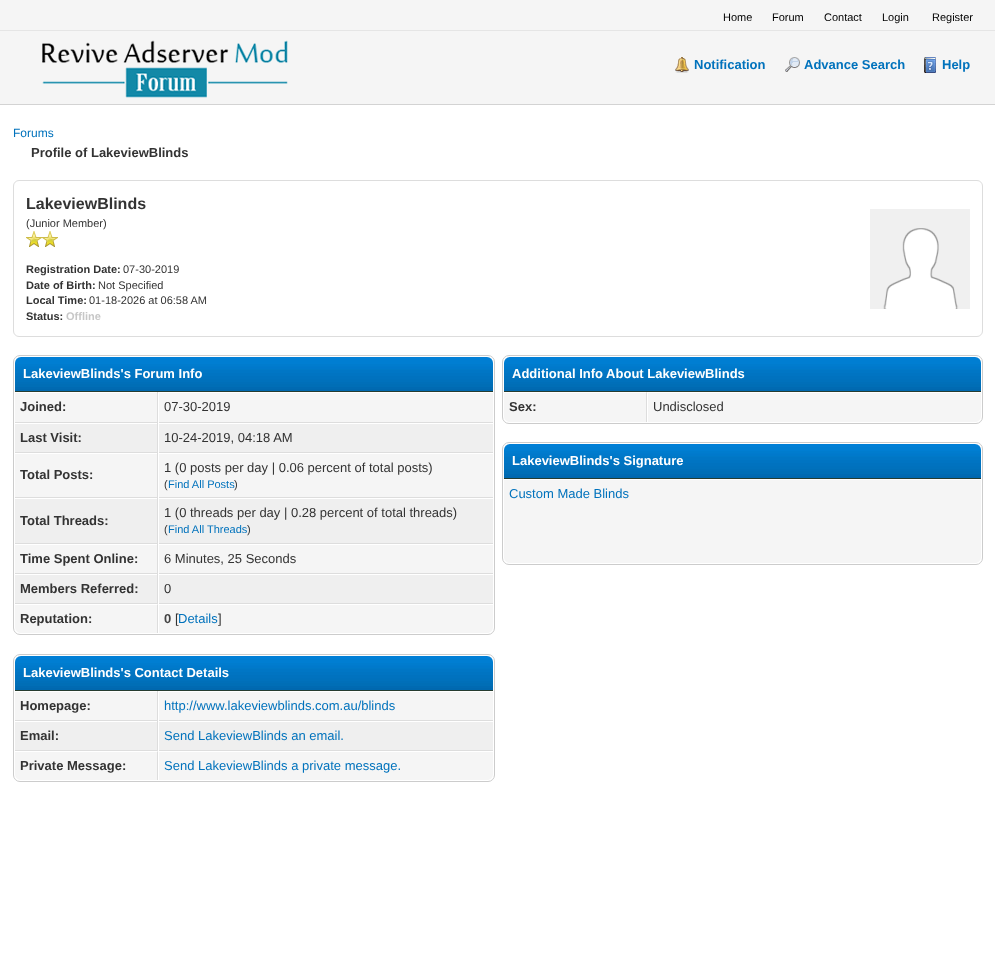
<svg xmlns="http://www.w3.org/2000/svg" width="995" height="976" viewBox="0 0 995 976">
  <rect width="100%" height="100%" fill="#ffffff"/>
  <rect x="0" y="0" width="995" height="104" fill="#f5f5f5"/>
  <rect x="0" y="104" width="995" height="1" fill="#d3d3d3"/>
  <rect x="0" y="30" width="995" height="1" fill="#e5e5e5"/>
  <text x="723" y="21" font-family="Liberation Sans" font-size="11" fill="#000000">Home</text>
  <text x="772" y="21" font-family="Liberation Sans" font-size="11" fill="#000000">Forum</text>
  <text x="824" y="21" font-family="Liberation Sans" font-size="11" fill="#000000">Contact</text>
  <text x="882" y="21" font-family="Liberation Sans" font-size="11" fill="#000000">Login</text>
  <text x="932" y="21" font-family="Liberation Sans" font-size="11" fill="#000000">Register</text>
  <image x="42" y="40" width="246" height="58" href="img1.png"/>
  <image x="675" y="57" width="14" height="16" href="img2.png"/>
  <text x="694" y="69" font-family="Liberation Sans" font-size="13" font-weight="bold" fill="#0072bc">Notification</text>
  <image x="785" y="57" width="15" height="15" href="img3.png"/>
  <text x="804" y="69" font-family="Liberation Sans" font-size="13" font-weight="bold" fill="#0072bc">Advance Search</text>
  <image x="924" y="57" width="12" height="16" href="img4.png"/>
  <text x="942" y="69" font-family="Liberation Sans" font-size="13" font-weight="bold" fill="#0072bc">Help</text>
  <text x="13" y="137" font-family="Liberation Sans" font-size="12" fill="#0072bc">Forums</text>
  <text x="31" y="157" font-family="Liberation Sans" font-size="13" font-weight="bold" fill="#333333">Profile of LakeviewBlinds</text>
  <rect x="13.5" y="180.5" width="969" height="156" rx="5.5" fill="none" stroke="#dddddd"/>
  <text x="26" y="209" font-family="Liberation Sans" font-size="16" font-weight="bold" fill="#333333">LakeviewBlinds</text>
  <text x="26" y="227" font-family="Liberation Sans" font-size="11" fill="#333333">(Junior Member)</text>
  <image x="26" y="231" width="16" height="16" href="img5.png"/>
  <image x="42" y="231" width="16" height="16" href="img5.png"/>
  <text x="26" y="273" font-family="Liberation Sans" font-size="11" font-weight="bold" fill="#333333">Registration Date:</text>
  <text x="123" y="273" font-family="Liberation Sans" font-size="11" fill="#333333">07-30-2019</text>
  <text x="26" y="289" font-family="Liberation Sans" font-size="11" font-weight="bold" fill="#333333">Date of Birth:</text>
  <text x="98" y="289" font-family="Liberation Sans" font-size="11" fill="#333333">Not Specified</text>
  <text x="26" y="304" font-family="Liberation Sans" font-size="11" font-weight="bold" fill="#333333">Local Time:</text>
  <text x="89" y="304" font-family="Liberation Sans" font-size="11" fill="#333333">01-18-2026 at 06:58 AM</text>
  <text x="26" y="320" font-family="Liberation Sans" font-size="11" font-weight="bold" fill="#333333">Status:</text>
  <text x="66" y="320" font-family="Liberation Sans" font-size="11" font-weight="bold" fill="#c7c7c7">Offline</text>
  <image x="870" y="209" width="100" height="100" href="img6.png"/>
  <rect x="13.5" y="355.5" width="481" height="279" rx="6.5" fill="none" stroke="#cccccc"/>
  <image x="15" y="357" width="478" height="34" href="img7.png"/>
  <rect x="15" y="391" width="478" height="1" fill="#263c30"/>
  <text x="23" y="378" font-family="Liberation Sans" font-size="13" font-weight="bold" fill="#ffffff">LakeviewBlinds's Forum Info</text>
  <rect x="15" y="393" width="142" height="29" fill="#f5f5f5"/>
  <rect x="157" y="392" width="1" height="212" fill="#dddddd"/>
  <rect x="15" y="422" width="478" height="1" fill="#dddddd"/>
  <text x="20" y="411" font-family="Liberation Sans" font-size="13" font-weight="bold" fill="#333333">Joined:</text>
  <rect x="159" y="393" width="334" height="29" fill="#f5f5f5"/>
  <rect x="158" y="422" width="1" height="1" fill="#ffffff"/>
  <text x="164" y="411" font-family="Liberation Sans" font-size="13" fill="#333333">07-30-2019</text>
  <rect x="15" y="424" width="142" height="28" fill="#efefef"/>
  <rect x="15" y="452" width="478" height="1" fill="#dddddd"/>
  <text x="20" y="442" font-family="Liberation Sans" font-size="13" font-weight="bold" fill="#333333">Last Visit:</text>
  <rect x="159" y="424" width="334" height="28" fill="#efefef"/>
  <rect x="158" y="452" width="1" height="1" fill="#ffffff"/>
  <text x="164" y="442" font-family="Liberation Sans" font-size="13" fill="#333333">10-24-2019, 04:18 AM</text>
  <rect x="15" y="454" width="142" height="43" fill="#f5f5f5"/>
  <rect x="15" y="497" width="478" height="1" fill="#dddddd"/>
  <text x="20" y="479" font-family="Liberation Sans" font-size="13" font-weight="bold" fill="#333333">Total Posts:</text>
  <rect x="159" y="454" width="334" height="43" fill="#f5f5f5"/>
  <rect x="158" y="497" width="1" height="1" fill="#ffffff"/>
  <text x="164" y="472" font-family="Liberation Sans" font-size="13" fill="#333333">1 (0 posts per day | 0.06 percent of total posts)</text>
  <text x="164" y="488" font-family="Liberation Sans" font-size="11" fill="#333333">(</text>
  <text x="168" y="488" font-family="Liberation Sans" font-size="11" fill="#0072bc">Find All Posts</text>
  <text x="234" y="488" font-family="Liberation Sans" font-size="11" fill="#333333">)</text>
  <rect x="15" y="499" width="142" height="44" fill="#efefef"/>
  <rect x="15" y="543" width="478" height="1" fill="#dddddd"/>
  <text x="20" y="525" font-family="Liberation Sans" font-size="13" font-weight="bold" fill="#333333">Total Threads:</text>
  <rect x="159" y="499" width="334" height="44" fill="#efefef"/>
  <rect x="158" y="543" width="1" height="1" fill="#ffffff"/>
  <text x="164" y="517" font-family="Liberation Sans" font-size="13" fill="#333333">1 (0 threads per day | 0.28 percent of total threads)</text>
  <text x="164" y="533" font-family="Liberation Sans" font-size="11" fill="#333333">(</text>
  <text x="168" y="533" font-family="Liberation Sans" font-size="11" fill="#0072bc">Find All Threads</text>
  <text x="247" y="533" font-family="Liberation Sans" font-size="11" fill="#333333">)</text>
  <rect x="15" y="545" width="142" height="28" fill="#f5f5f5"/>
  <rect x="15" y="573" width="478" height="1" fill="#dddddd"/>
  <text x="20" y="563" font-family="Liberation Sans" font-size="13" font-weight="bold" fill="#333333">Time Spent Online:</text>
  <rect x="159" y="545" width="334" height="28" fill="#f5f5f5"/>
  <rect x="158" y="573" width="1" height="1" fill="#ffffff"/>
  <text x="164" y="563" font-family="Liberation Sans" font-size="13" fill="#333333">6 Minutes, 25 Seconds</text>
  <rect x="15" y="575" width="142" height="28" fill="#efefef"/>
  <rect x="15" y="603" width="478" height="1" fill="#dddddd"/>
  <text x="20" y="593" font-family="Liberation Sans" font-size="13" font-weight="bold" fill="#333333">Members Referred:</text>
  <rect x="159" y="575" width="334" height="28" fill="#efefef"/>
  <rect x="158" y="603" width="1" height="1" fill="#ffffff"/>
  <text x="164" y="593" font-family="Liberation Sans" font-size="13" fill="#333333">0</text>
  <path d="M15 604H158V633H21C17.5 633 15 630.5 15 627Z" fill="#f5f5f5"/>
  <path d="M15 604V605H157L158 604Z" fill="#ffffff"/>
  <path d="M158 604L157 605V633H158Z" fill="#dddddd"/>
  <text x="20" y="623" font-family="Liberation Sans" font-size="13" font-weight="bold" fill="#333333">Reputation:</text>
  <path d="M158 604H493V627C493 630.5 490.5 633 487 633H158Z" fill="#f5f5f5"/>
  <rect x="158" y="604" width="335" height="1" fill="#ffffff"/>
  <rect x="158" y="604" width="1" height="29" fill="#ffffff"/>
  <text x="164" y="623" font-family="Liberation Sans" font-size="13" font-weight="bold" fill="#444444">0</text>
  <text x="175" y="623" font-family="Liberation Sans" font-size="13" fill="#333333">[</text>
  <text x="178" y="623" font-family="Liberation Sans" font-size="13" fill="#0072bc">Details</text>
  <text x="218" y="623" font-family="Liberation Sans" font-size="13" fill="#333333">]</text>
  <rect x="13.5" y="654.5" width="481" height="127" rx="6.5" fill="none" stroke="#cccccc"/>
  <image x="15" y="656" width="478" height="34" href="img7.png"/>
  <rect x="15" y="690" width="478" height="1" fill="#263c30"/>
  <text x="23" y="677" font-family="Liberation Sans" font-size="13" font-weight="bold" fill="#ffffff">LakeviewBlinds's Contact Details</text>
  <rect x="15" y="692" width="142" height="28" fill="#f5f5f5"/>
  <rect x="157" y="691" width="1" height="60" fill="#dddddd"/>
  <rect x="15" y="720" width="478" height="1" fill="#dddddd"/>
  <text x="20" y="710" font-family="Liberation Sans" font-size="13" font-weight="bold" fill="#333333">Homepage:</text>
  <rect x="159" y="692" width="334" height="28" fill="#f5f5f5"/>
  <rect x="158" y="720" width="1" height="1" fill="#ffffff"/>
  <text x="164" y="710" font-family="Liberation Sans" font-size="13" fill="#0072bc">http://www.lakeviewblinds.com.au/blinds</text>
  <rect x="15" y="722" width="142" height="28" fill="#efefef"/>
  <rect x="15" y="750" width="478" height="1" fill="#dddddd"/>
  <text x="20" y="740" font-family="Liberation Sans" font-size="13" font-weight="bold" fill="#333333">Email:</text>
  <rect x="159" y="722" width="334" height="28" fill="#efefef"/>
  <rect x="158" y="750" width="1" height="1" fill="#ffffff"/>
  <text x="164" y="740" font-family="Liberation Sans" font-size="13" fill="#0072bc">Send LakeviewBlinds an email.</text>
  <path d="M15 751H158V780H21C17.5 780 15 777.5 15 774Z" fill="#f5f5f5"/>
  <path d="M15 751V752H157L158 751Z" fill="#ffffff"/>
  <path d="M158 751L157 752V780H158Z" fill="#dddddd"/>
  <text x="20" y="770" font-family="Liberation Sans" font-size="13" font-weight="bold" fill="#333333">Private Message:</text>
  <path d="M158 751H493V774C493 777.5 490.5 780 487 780H158Z" fill="#f5f5f5"/>
  <rect x="158" y="751" width="335" height="1" fill="#ffffff"/>
  <rect x="158" y="751" width="1" height="29" fill="#ffffff"/>
  <text x="164" y="770" font-family="Liberation Sans" font-size="13" fill="#0072bc">Send LakeviewBlinds a private message.</text>
  <rect x="502.5" y="355.5" width="480" height="68" rx="6.5" fill="none" stroke="#cccccc"/>
  <image x="504" y="357" width="477" height="34" href="img8.png"/>
  <rect x="504" y="391" width="477" height="1" fill="#263c30"/>
  <text x="512" y="378" font-family="Liberation Sans" font-size="13" font-weight="bold" fill="#ffffff">Additional Info About LakeviewBlinds</text>
  <path d="M504 392H647V422H510C506.5 422 504 419.5 504 416Z" fill="#f5f5f5"/>
  <path d="M504 392V393H646L647 392Z" fill="#ffffff"/>
  <path d="M647 392L646 393V422H647Z" fill="#dddddd"/>
  <text x="509" y="411" font-family="Liberation Sans" font-size="13" font-weight="bold" fill="#333333">Sex:</text>
  <path d="M647 392H981V416C981 419.5 978.5 422 975 422H647Z" fill="#f5f5f5"/>
  <rect x="647" y="392" width="334" height="1" fill="#ffffff"/>
  <rect x="647" y="392" width="1" height="30" fill="#ffffff"/>
  <text x="653" y="411" font-family="Liberation Sans" font-size="13" fill="#333333">Undisclosed</text>
  <rect x="502.5" y="442.5" width="480" height="122" rx="6.5" fill="none" stroke="#cccccc"/>
  <image x="504" y="444" width="477" height="34" href="img8.png"/>
  <rect x="504" y="478" width="477" height="1" fill="#263c30"/>
  <text x="512" y="465" font-family="Liberation Sans" font-size="13" font-weight="bold" fill="#ffffff">LakeviewBlinds's Signature</text>
  <path d="M504 479H981V557C981 560.5 978.5 563 975 563H510C506.5 563 504 560.5 504 557Z" fill="#f5f5f5"/>
  <rect x="504" y="479" width="477" height="1" fill="#ffffff"/>
  <text x="509" y="498" font-family="Liberation Sans" font-size="13" fill="#0072bc">Custom Made Blinds</text>
</svg>
